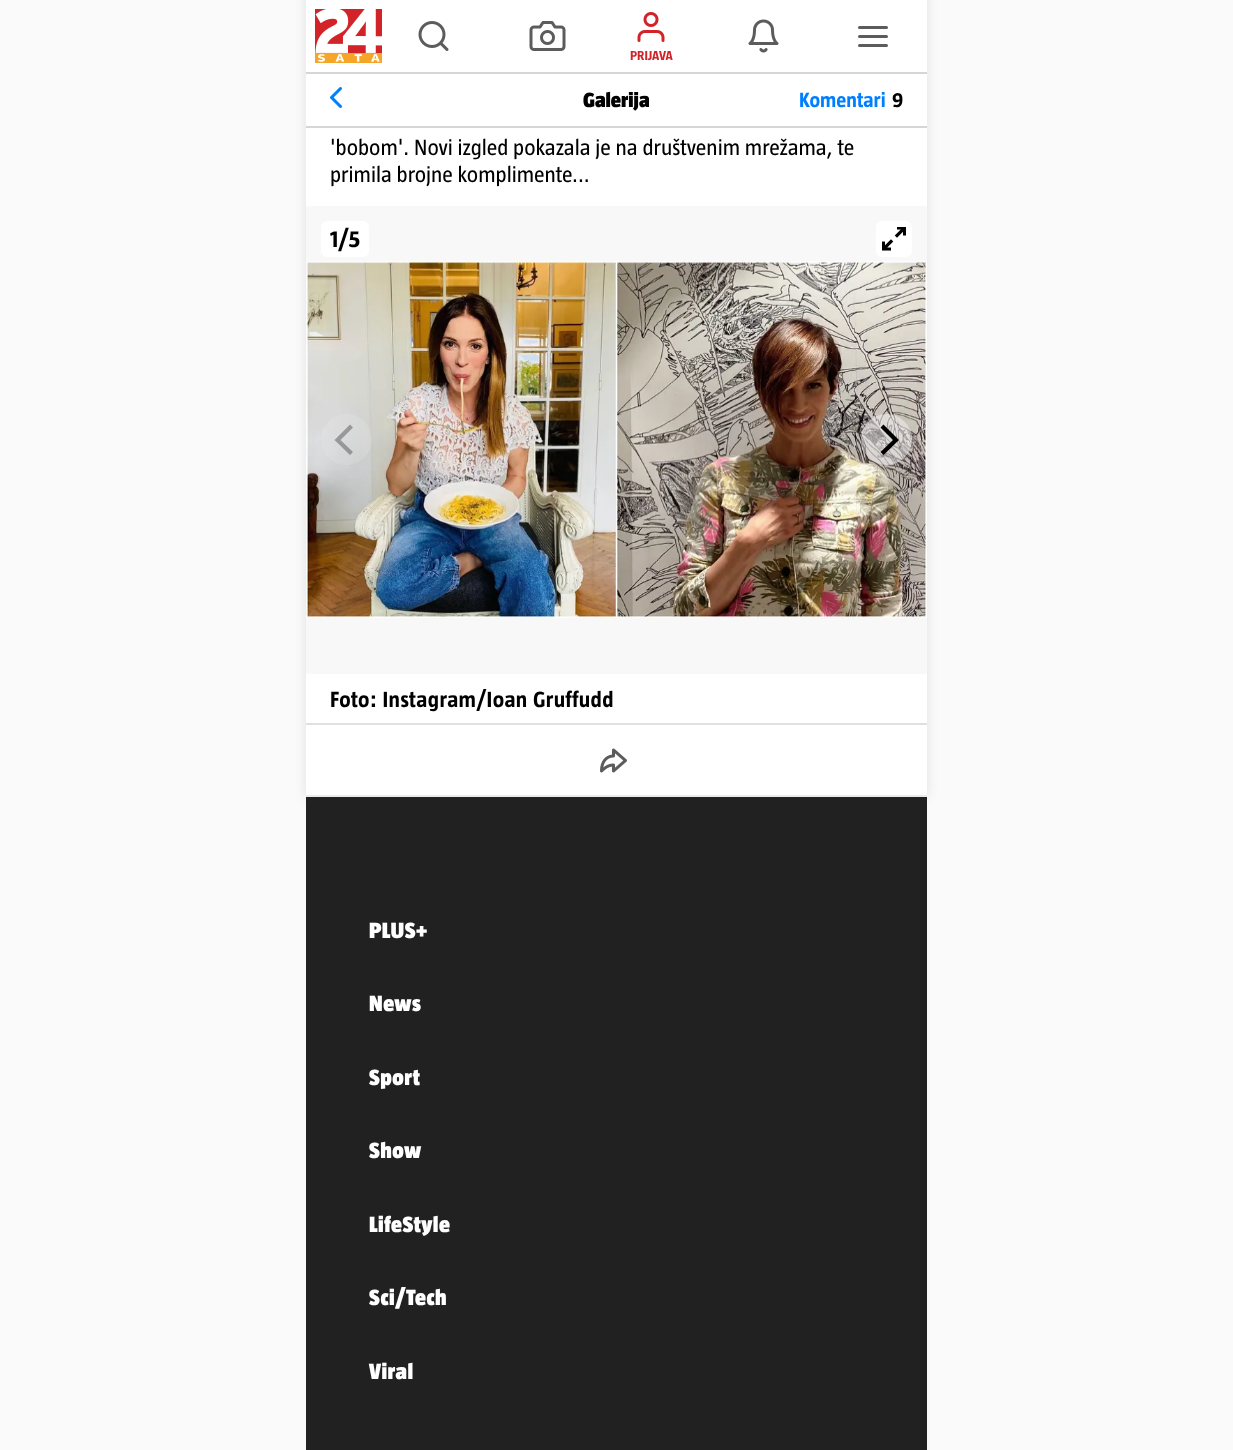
<svg xmlns="http://www.w3.org/2000/svg" width="1233" height="1450" viewBox="0 0 1233 1450">
  <defs>
    <filter id="blur1" x="-50%" y="-200%" width="200%" height="500%"><feGaussianBlur stdDeviation="6"/></filter>
  </defs>
  <rect width="100%" height="100%" fill="#fafafa"/>
  <rect x="306" y="-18" width="621" height="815" fill="#000000" fill-opacity="0.1" filter="url(#blur1)"/>
  <rect x="306" y="0" width="621" height="72" fill="#ffffff"/>
  <rect x="306" y="72" width="621" height="2" fill="#d6d6d6"/>
  <image x="315" y="9" width="67" height="54" href="img1.png"/>
  <image x="418" y="21" width="31" height="30" href="img2.png"/>
  <image x="529" y="21" width="37" height="30" href="img3.png"/>
  <image x="748" y="19" width="31" height="34" href="img4.png"/>
  <rect x="858" y="26" width="30" height="3" rx="1.5" fill="#5c5c5c"/>
  <rect x="858" y="35" width="30" height="3" rx="1.5" fill="#5c5c5c"/>
  <rect x="858" y="44" width="30" height="3" rx="1.5" fill="#5c5c5c"/>
  <image x="637" y="12" width="28" height="30" href="img5.png"/>
  <text x="630" y="60" font-family="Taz" font-size="13.5" font-weight="bold" fill="#d22328">PRIJAVA</text>
  <rect x="306" y="74" width="621" height="721" fill="#ffffff"/>
  <rect x="306" y="126" width="621" height="2" fill="#000000" fill-opacity="0.16"/>
  <image x="330" y="87" width="12" height="21" href="img6.png"/>
  <text x="583" y="107" font-family="Taz" font-size="21" font-weight="900" fill="#000000">Galerija</text>
  <text x="799" y="107" font-family="Taz" font-size="21" font-weight="bold" fill="#007fff">Komentari</text>
  <text x="892" y="107" font-family="Taz" font-size="21" font-weight="bold" fill="#000000">9</text>
  <text x="330" y="155" font-family="Taz" font-size="22.5" fill="#000000">'bobom'. Novi izgled pokazala je na društvenim mrežama, te</text>
  <text x="330" y="182" font-family="Taz" font-size="22.5" fill="#000000">primila brojne komplimente...</text>
  <rect x="306" y="206" width="621" height="468" fill="#f8f8f8"/>
  <image x="306" y="261" width="621" height="357" href="img7.png"/>
  <rect x="321" y="221" width="48" height="36" rx="6" fill="#ffffff"/>
  <text x="330" y="247" font-family="Taz" font-size="24" font-weight="bold" fill="#000000">1/5</text>
  <rect x="876" y="221" width="36" height="36" rx="6" fill="#ffffff"/>
  <image x="882" y="227" width="24" height="24" href="img8.png"/>
  <circle cx="346.5" cy="439.5" r="25.5" fill="#f5f5f5" fill-opacity="0.15"/>
  <path d="M334.5 440L350 455L353 452L340.5 440L353 427.5L350 424.5Z" fill="#000000" fill-opacity="0.3"/>
  <circle cx="886.5" cy="439.5" r="25.5" fill="#f5f5f5" fill-opacity="0.5"/>
  <path d="M899 440L883.5 424.5L880.5 427.5L893 440L880.5 452L883.5 455Z" fill="#000000"/>
  <text x="330" y="707" font-family="Taz" font-size="22.5" font-weight="bold" letter-spacing="0.4" fill="#000000">Foto: Instagram/Ioan Gruffudd</text>
  <rect x="306" y="723" width="621" height="2" fill="#e0e0e0"/>
  <rect x="306" y="795" width="621" height="2" fill="#ebebeb"/>
  <image x="600" y="748" width="27" height="25" href="img9.png"/>
  <rect x="306" y="797" width="621" height="653" fill="#212121"/>
  <text x="369" y="938" font-family="Taz" font-size="22.5" font-weight="900" letter-spacing="0.5" fill="#ffffff">PLUS+</text>
  <text x="369" y="1011" font-family="Taz" font-size="22.5" font-weight="900" letter-spacing="0.5" fill="#ffffff">News</text>
  <text x="369" y="1085" font-family="Taz" font-size="22.5" font-weight="900" letter-spacing="0.5" fill="#ffffff">Sport</text>
  <text x="369" y="1158" font-family="Taz" font-size="22.5" font-weight="900" letter-spacing="0.5" fill="#ffffff">Show</text>
  <text x="369" y="1232" font-family="Taz" font-size="22.5" font-weight="900" letter-spacing="0.5" fill="#ffffff">LifeStyle</text>
  <text x="369" y="1305" font-family="Taz" font-size="22.5" font-weight="900" letter-spacing="0.5" fill="#ffffff">Sci/Tech</text>
  <text x="369" y="1379" font-family="Taz" font-size="22.5" font-weight="900" letter-spacing="0.5" fill="#ffffff">Viral</text>
</svg>
